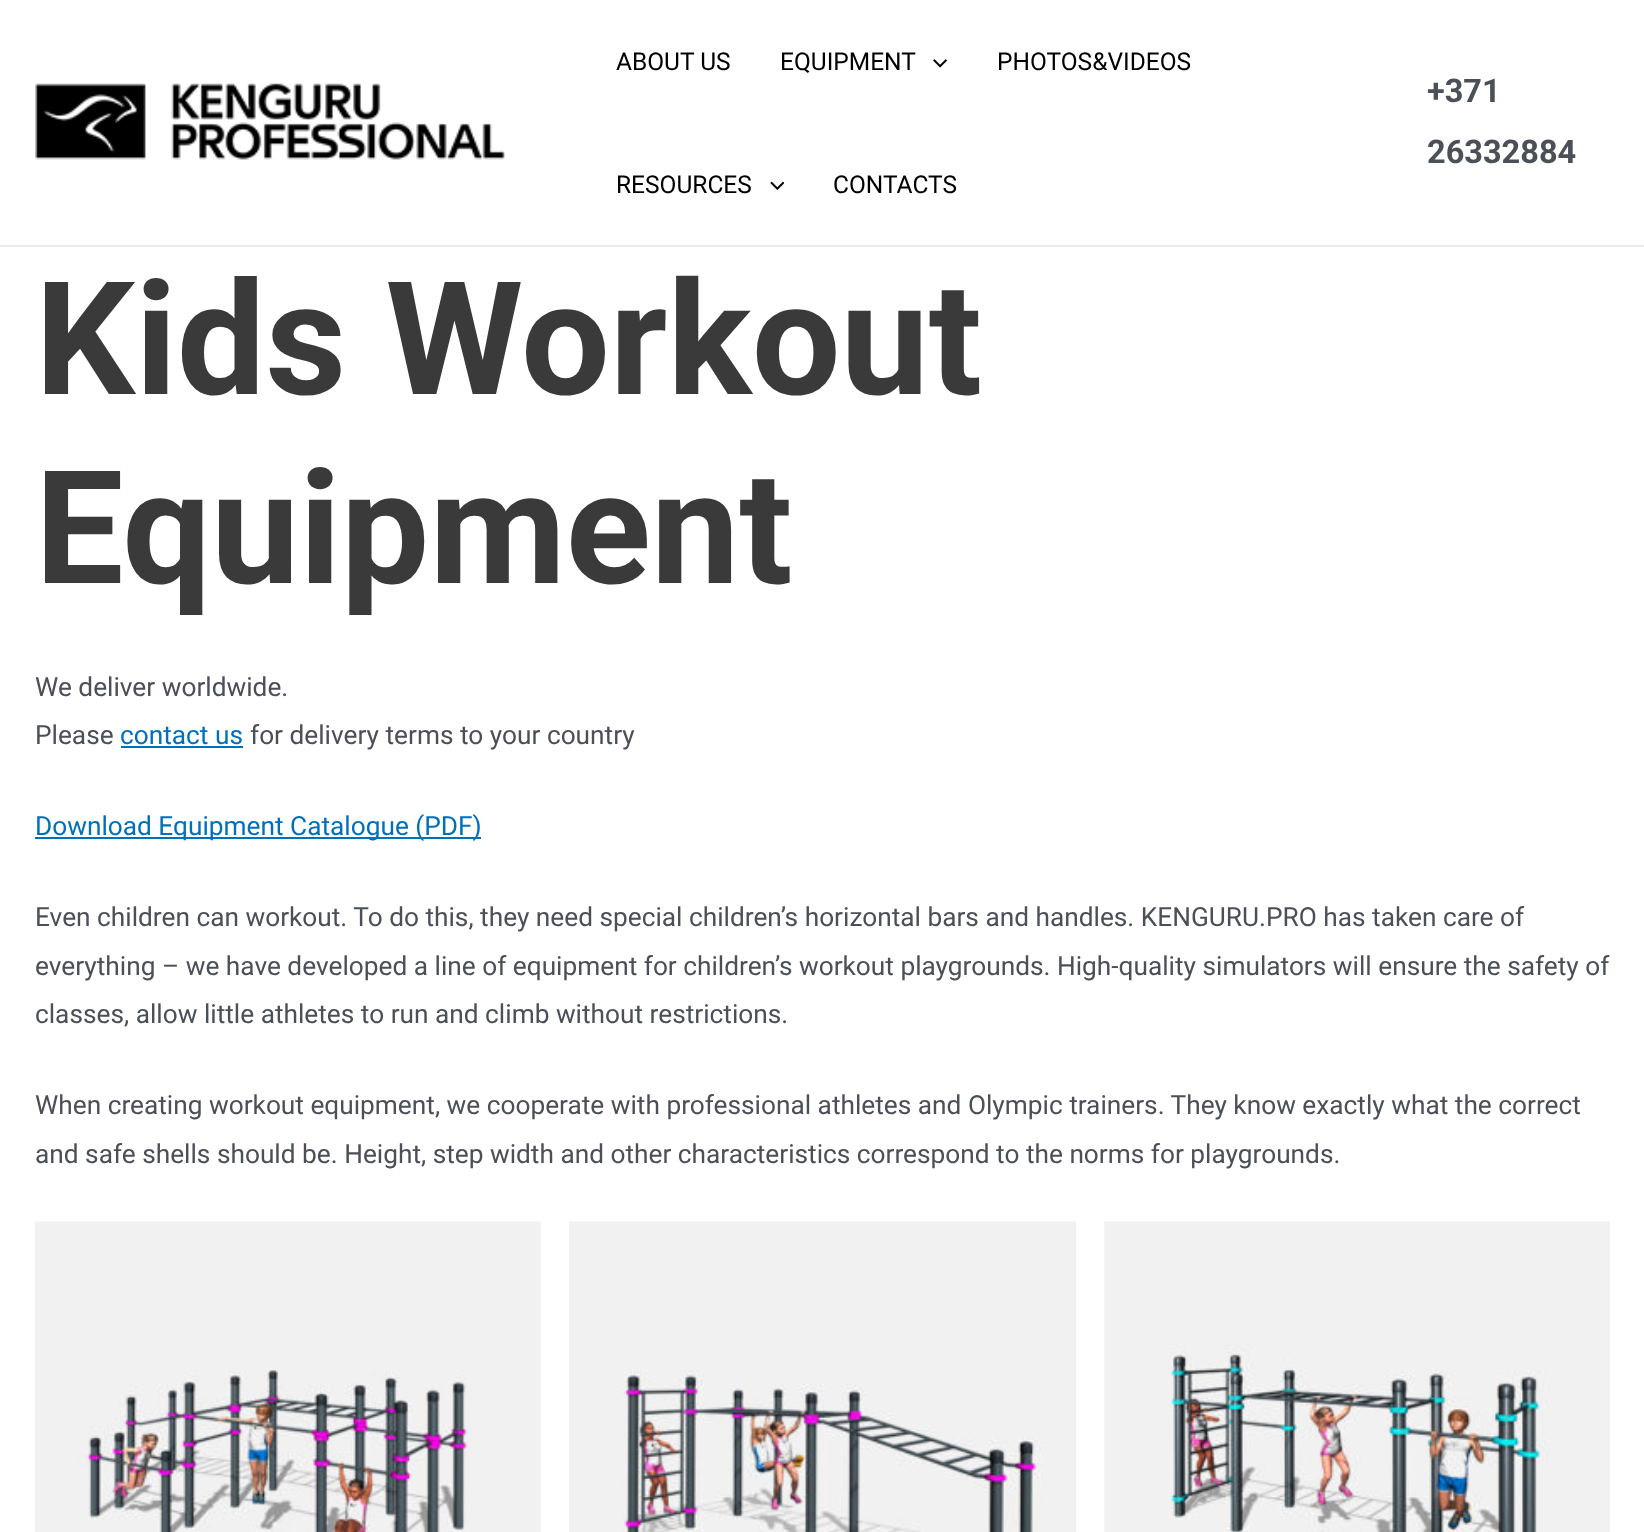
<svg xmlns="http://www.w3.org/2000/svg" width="1644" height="1532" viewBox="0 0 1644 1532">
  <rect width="100%" height="100%" fill="#ffffff"/>
  <rect x="0" y="245" width="1644" height="2" fill="#eaeaea"/>
  <image x="35" y="83" width="470" height="77" href="img1.png"/>
  <text x="616" y="70" font-family="Roboto" font-size="24.5" fill="#000000">ABOUT US</text>
  <text x="780" y="70" font-family="Roboto" font-size="24.5" fill="#000000">EQUIPMENT</text>
  <image x="933" y="59" width="15" height="9" href="img2.png"/>
  <text x="997" y="70" font-family="Roboto" font-size="24.5" fill="#000000">PHOTOS&amp;VIDEOS</text>
  <text x="616" y="193" font-family="Roboto" font-size="24.5" fill="#000000">RESOURCES</text>
  <image x="770" y="181" width="14" height="9" href="img3.png"/>
  <text x="833" y="193" font-family="Roboto" font-size="24.5" fill="#000000">CONTACTS</text>
  <text x="1427" y="102" font-family="Roboto" font-size="32.5" font-weight="bold" fill="#4b4f58">+371</text>
  <text x="1427" y="163" font-family="Roboto" font-size="32.5" font-weight="bold" fill="#4b4f58">26332884</text>
  <text x="35" y="394" font-family="Roboto" font-size="157.5" font-weight="bold" fill="#3a3a3a">Kids Workout</text>
  <text x="35" y="583" font-family="Roboto" font-size="157.5" font-weight="bold" fill="#3a3a3a">Equipment</text>
  <text x="35" y="696" font-family="Roboto" font-size="26.25" fill="#4b4f58">We deliver worldwide.</text>
  <text x="35" y="744" font-family="Roboto" font-size="26.25" fill="#4b4f58">Please</text>
  <text x="120" y="744" font-family="Roboto" font-size="26.25" fill="#0170b9">contact us</text>
  <rect x="121" y="746" width="122" height="2" fill="#0170b9"/>
  <text x="250" y="744" font-family="Roboto" font-size="26.25" fill="#4b4f58">for delivery terms to your country</text>
  <rect x="35" y="837" width="446" height="2" fill="#0170b9"/>
  <text x="35" y="835" font-family="Roboto" font-size="26.25" fill="#0170b9">Download Equipment Catalogue (PDF)</text>
  <text x="35" y="926" font-family="Roboto" font-size="26.25" fill="#4b4f58">Even children can workout. To do this, they need special children’s horizontal bars and handles. KENGURU.PRO has taken care of</text>
  <text x="35" y="975" font-family="Roboto" font-size="26.25" fill="#4b4f58">everything – we have developed a line of equipment for children’s workout playgrounds. High-quality simulators will ensure the safety of</text>
  <text x="35" y="1023" font-family="Roboto" font-size="26.25" fill="#4b4f58">classes, allow little athletes to run and climb without restrictions.</text>
  <text x="35" y="1114" font-family="Roboto" font-size="26.25" fill="#4b4f58">When creating workout equipment, we cooperate with professional athletes and Olympic trainers. They know exactly what the correct</text>
  <text x="35" y="1163" font-family="Roboto" font-size="26.25" fill="#4b4f58">and safe shells should be. Height, step width and other characteristics correspond to the norms for playgrounds.</text>
  <image x="35" y="1221" width="506" height="311" href="img4.png"/>
  <image x="569" y="1221" width="507" height="311" href="img5.png"/>
  <image x="1104" y="1221" width="506" height="311" href="img6.png"/>
</svg>
